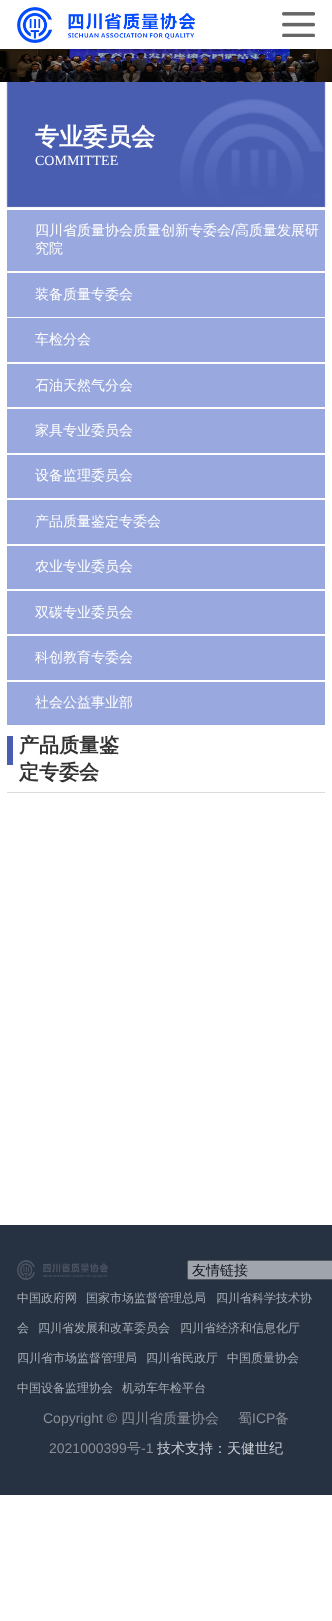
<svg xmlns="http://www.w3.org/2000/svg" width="332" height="1621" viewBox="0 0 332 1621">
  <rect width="100%" height="100%" fill="#ffffff"/>
  <image x="17" y="7" width="179" height="36" href="img1.png"/>
  <image x="282" y="12" width="33" height="25" href="img2.png"/>
  <image x="0" y="49" width="332" height="33" href="img3.png"/>
  <image x="6" y="82" width="320" height="126" href="img4.png"/>
  <text x="35" y="145" font-family="WenQuanYi Zen Hei" font-size="24" font-weight="bold" fill="#ffffff">专业委员会</text>
  <text x="35" y="165" font-family="Liberation Serif" font-size="14" fill="#ffffff">COMMITTEE</text>
  <rect x="7" y="210" width="318" height="61" fill="#99a8de"/>
  <text x="35" y="235" font-family="WenQuanYi Zen Hei" font-size="14" font-weight="500" fill="#ffffff">四川省质量协会质量创新专委会</text>
  <text x="231" y="235" font-family="Liberation Sans" font-size="14" fill="#ffffff">/</text>
  <text x="235" y="235" font-family="WenQuanYi Zen Hei" font-size="14" font-weight="500" fill="#ffffff">高质量发展研</text>
  <text x="35" y="253" font-family="WenQuanYi Zen Hei" font-size="14" font-weight="500" fill="#ffffff">究院</text>
  <rect x="7" y="273" width="318" height="44" fill="#99a8de"/>
  <text x="35" y="299" font-family="WenQuanYi Zen Hei" font-size="14" font-weight="500" fill="#ffffff">装备质量专委会</text>
  <rect x="7" y="318" width="318" height="44" fill="#99a8de"/>
  <text x="35" y="344" font-family="WenQuanYi Zen Hei" font-size="14" font-weight="500" fill="#ffffff">车检分会</text>
  <rect x="7" y="364" width="318" height="43" fill="#99a8de"/>
  <text x="35" y="390" font-family="WenQuanYi Zen Hei" font-size="14" font-weight="500" fill="#ffffff">石油天然气分会</text>
  <rect x="7" y="409" width="318" height="44" fill="#99a8de"/>
  <text x="35" y="435" font-family="WenQuanYi Zen Hei" font-size="14" font-weight="500" fill="#ffffff">家具专业委员会</text>
  <rect x="7" y="455" width="318" height="43" fill="#99a8de"/>
  <text x="35" y="480" font-family="WenQuanYi Zen Hei" font-size="14" font-weight="500" fill="#ffffff">设备监理委员会</text>
  <rect x="7" y="500" width="318" height="44" fill="#99a8de"/>
  <text x="35" y="526" font-family="WenQuanYi Zen Hei" font-size="14" font-weight="500" fill="#ffffff">产品质量鉴定专委会</text>
  <rect x="7" y="546" width="318" height="43" fill="#99a8de"/>
  <text x="35" y="571" font-family="WenQuanYi Zen Hei" font-size="14" font-weight="500" fill="#ffffff">农业专业委员会</text>
  <rect x="7" y="591" width="318" height="43" fill="#99a8de"/>
  <text x="35" y="617" font-family="WenQuanYi Zen Hei" font-size="14" font-weight="500" fill="#ffffff">双碳专业委员会</text>
  <rect x="7" y="636" width="318" height="44" fill="#99a8de"/>
  <text x="35" y="662" font-family="WenQuanYi Zen Hei" font-size="14" font-weight="500" fill="#ffffff">科创教育专委会</text>
  <rect x="7" y="682" width="318" height="43" fill="#99a8de"/>
  <text x="35" y="707" font-family="WenQuanYi Zen Hei" font-size="14" font-weight="500" fill="#ffffff">社会公益事业部</text>
  <rect x="7" y="792" width="318" height="1" fill="#dcdcdc"/>
  <rect x="7" y="736" width="6" height="29" fill="#495eb1"/>
  <text x="19" y="752" font-family="WenQuanYi Zen Hei" font-size="20" font-weight="bold" fill="#333333">产品质量鉴</text>
  <text x="19" y="779" font-family="WenQuanYi Zen Hei" font-size="20" font-weight="bold" fill="#333333">定专委会</text>
  <rect x="0" y="1225" width="332" height="270" fill="#263142"/>
  <image x="17" y="1260" width="91" height="20" href="img5.png"/>
  <rect x="187.5" y="1260.5" width="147" height="19" rx="1.5" fill="#a0a4ac" stroke="#53585f"/>
  <text x="192" y="1275" font-family="WenQuanYi Zen Hei" font-size="14" font-weight="500" fill="#11161d">友情链接</text>
  <text x="17" y="1302" font-family="WenQuanYi Zen Hei" font-size="12" font-weight="500" fill="#a8aeb6">中国政府网</text>
  <text x="86" y="1302" font-family="WenQuanYi Zen Hei" font-size="12" font-weight="500" fill="#a8aeb6">国家市场监督管理总局</text>
  <text x="216" y="1302" font-family="WenQuanYi Zen Hei" font-size="12" font-weight="500" fill="#a8aeb6">四川省科学技术协</text>
  <text x="17" y="1332" font-family="WenQuanYi Zen Hei" font-size="12" font-weight="500" fill="#a8aeb6">会</text>
  <text x="38" y="1332" font-family="WenQuanYi Zen Hei" font-size="12" font-weight="500" fill="#a8aeb6">四川省发展和改革委员会</text>
  <text x="180" y="1332" font-family="WenQuanYi Zen Hei" font-size="12" font-weight="500" fill="#a8aeb6">四川省经济和信息化厅</text>
  <text x="17" y="1362" font-family="WenQuanYi Zen Hei" font-size="12" font-weight="500" fill="#a8aeb6">四川省市场监督管理局</text>
  <text x="146" y="1362" font-family="WenQuanYi Zen Hei" font-size="12" font-weight="500" fill="#a8aeb6">四川省民政厅</text>
  <text x="227" y="1362" font-family="WenQuanYi Zen Hei" font-size="12" font-weight="500" fill="#a8aeb6">中国质量协会</text>
  <text x="17" y="1392" font-family="WenQuanYi Zen Hei" font-size="12" font-weight="500" fill="#a8aeb6">中国设备监理协会</text>
  <text x="122" y="1392" font-family="WenQuanYi Zen Hei" font-size="12" font-weight="500" fill="#a8aeb6">机动车年检平台</text>
  <text x="43" y="1423" font-family="Liberation Sans" font-size="14" fill="#8b8f97">Copyright ©</text>
  <text x="121" y="1423" font-family="WenQuanYi Zen Hei" font-size="14" font-weight="500" fill="#8b8f97">四川省质量协会</text>
  <text x="238" y="1423" font-family="WenQuanYi Zen Hei" font-size="14" font-weight="500" fill="#8b8f97">蜀</text>
  <text x="252" y="1423" font-family="Liberation Sans" font-size="14" fill="#8b8f97">ICP</text>
  <text x="275" y="1423" font-family="WenQuanYi Zen Hei" font-size="14" font-weight="500" fill="#8b8f97">备</text>
  <text x="49" y="1453" font-family="Liberation Sans" font-size="14" fill="#8b8f97">2021000399</text>
  <text x="127" y="1453" font-family="WenQuanYi Zen Hei" font-size="14" font-weight="500" fill="#8b8f97">号</text>
  <text x="141" y="1453" font-family="Liberation Sans" font-size="14" fill="#8b8f97">-1</text>
  <text x="157" y="1453" font-family="WenQuanYi Zen Hei" font-size="14" font-weight="500" fill="#c9cdd3">技术支持：天健世纪</text>
</svg>
